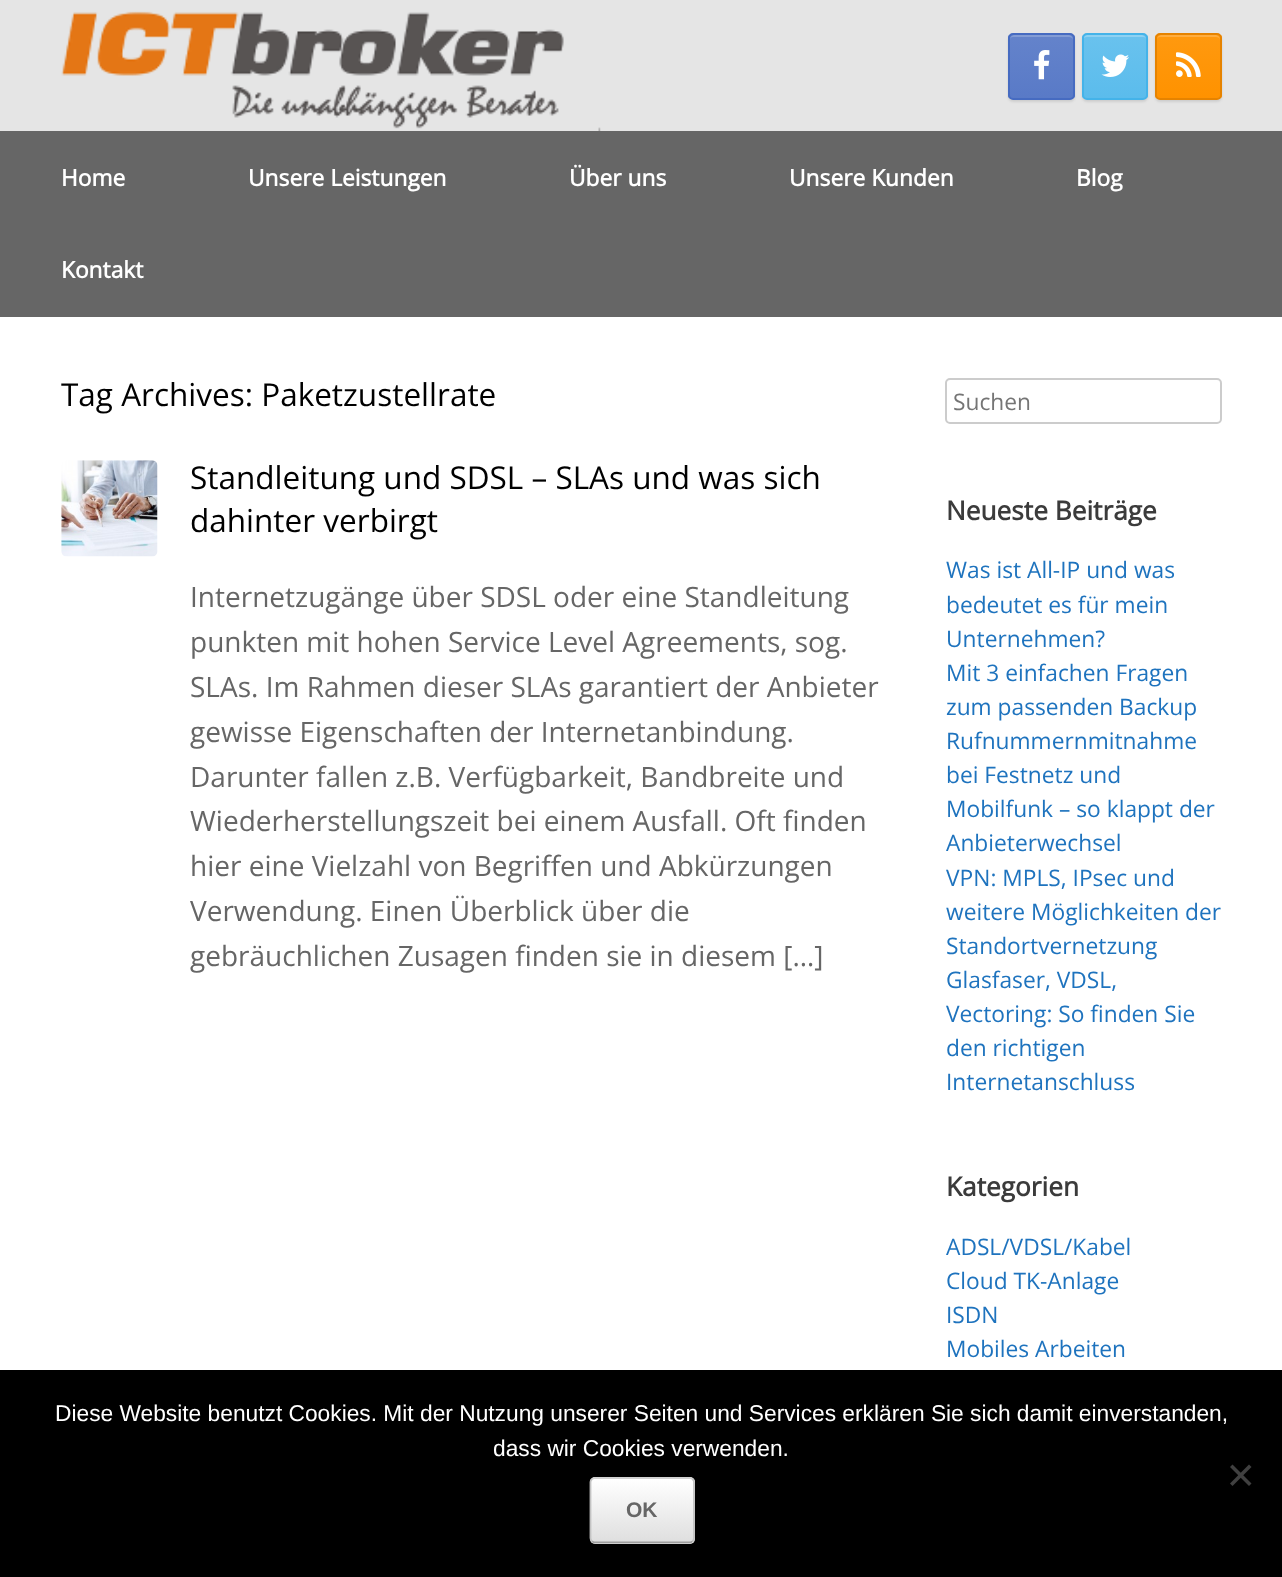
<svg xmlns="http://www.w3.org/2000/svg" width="1282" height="1577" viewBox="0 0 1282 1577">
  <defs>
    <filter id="blur1" x="-50%" y="-200%" width="200%" height="500%"><feGaussianBlur stdDeviation="1"/></filter>
    <clipPath id="clip1"><rect x="1008" y="33" width="67" height="67" rx="5"/></clipPath>
    <linearGradient id="g1" gradientUnits="userSpaceOnUse" x1="1010" y1="98" x2="1010" y2="35"><stop offset="0" stop-color="#597ac7"/><stop offset="1" stop-color="#6483cb"/></linearGradient>
    <clipPath id="clip2"><rect x="1082" y="33" width="66" height="67" rx="5"/></clipPath>
    <linearGradient id="g2" gradientUnits="userSpaceOnUse" x1="1083" y1="98" x2="1083" y2="35"><stop offset="0" stop-color="#5bbcec"/><stop offset="1" stop-color="#69c2ee"/></linearGradient>
    <clipPath id="clip3"><rect x="1155" y="33" width="67" height="67" rx="5"/></clipPath>
    <linearGradient id="g3" gradientUnits="userSpaceOnUse" x1="1157" y1="98" x2="1157" y2="35"><stop offset="0" stop-color="#ff9200"/><stop offset="1" stop-color="#ff990f"/></linearGradient>
    <clipPath id="clip4"><rect x="590" y="1477" width="105" height="67" rx="5"/></clipPath>
    <linearGradient id="g4" gradientUnits="userSpaceOnUse" x1="592" y1="1479" x2="592" y2="1416"><stop offset="0" stop-color="#dfdfdf"/><stop offset="1" stop-color="#ffffff"/></linearGradient>
    <linearGradient id="g5" gradientUnits="userSpaceOnUse" x1="592" y1="1542" x2="592" y2="1479"><stop offset="0" stop-color="#dfdfdf"/><stop offset="1" stop-color="#ffffff"/></linearGradient>
    <linearGradient id="g6" gradientUnits="userSpaceOnUse" x1="592" y1="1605" x2="592" y2="1542"><stop offset="0" stop-color="#dfdfdf"/><stop offset="1" stop-color="#ffffff"/></linearGradient>
  </defs>
  <rect width="100%" height="100%" fill="#e5e5e5"/>
  <image x="61" y="11" width="540" height="120" href="img1.png"/>
  <rect x="1008" y="35" width="67" height="67" rx="5" fill="#000000" fill-opacity="0.1" filter="url(#blur1)"/>
  <g clip-path="url(#clip1)">
    <rect x="1008" y="35" width="67" height="63" fill="url(#g1)"/>
  </g>
  <path d="M1013 37H1069C1071 37 1073 38 1073 40C1073 33 1065 35 1060 35H1023C1018 35 1010 33 1010 40C1010 38 1011 37 1013 37Z" fill="#839cd5"/>
  <rect x="1009" y="34" width="65" height="65" rx="4" fill="none" stroke="#466bc1" stroke-width="2"/>
  <image x="1034" y="50" width="16" height="30" href="img2.png"/>
  <rect x="1082" y="35" width="66" height="67" rx="5" fill="#000000" fill-opacity="0.1" filter="url(#blur1)"/>
  <g clip-path="url(#clip2)">
    <rect x="1082" y="35" width="66" height="63" fill="url(#g2)"/>
  </g>
  <path d="M1087 37H1143C1145 37 1146 38 1146 40C1146 33 1138 35 1133 35H1096C1091 35 1083 33 1083 40C1083 38 1085 37 1087 37Z" fill="#8ed1f2"/>
  <rect x="1083" y="34" width="64" height="65" rx="4" fill="none" stroke="#44b3e9" stroke-width="2"/>
  <image x="1101" y="54" width="28" height="23" href="img3.png"/>
  <rect x="1155" y="35" width="67" height="67" rx="5" fill="#000000" fill-opacity="0.1" filter="url(#blur1)"/>
  <g clip-path="url(#clip3)">
    <rect x="1155" y="35" width="67" height="63" fill="url(#g3)"/>
  </g>
  <path d="M1160 37H1216C1218 37 1220 38 1220 40C1220 33 1212 35 1207 35H1170C1165 35 1157 33 1157 40C1157 38 1158 37 1160 37Z" fill="#ffad3f"/>
  <rect x="1156" y="34" width="65" height="65" rx="4" fill="none" stroke="#e68300" stroke-width="2"/>
  <image x="1176" y="52" width="25" height="25" href="img4.png"/>
  <rect x="0" y="131" width="1282" height="186" fill="#666666"/>
  <text x="61" y="186" font-family="Open Sans" font-size="22.75" font-weight="bold" fill="#ffffff">Home</text>
  <text x="248" y="186" font-family="Open Sans" font-size="22.75" font-weight="bold" fill="#ffffff">Unsere Leistungen</text>
  <text x="569" y="186" font-family="Open Sans" font-size="22.75" font-weight="bold" fill="#ffffff">Über uns</text>
  <text x="789" y="186" font-family="Open Sans" font-size="22.75" font-weight="bold" fill="#ffffff">Unsere Kunden</text>
  <text x="1076" y="186" font-family="Open Sans" font-size="22.75" font-weight="bold" fill="#ffffff">Blog</text>
  <text x="61" y="278" font-family="Open Sans" font-size="22.75" font-weight="bold" fill="#ffffff">Kontakt</text>
  <rect x="0" y="317" width="1282" height="1053" fill="#ffffff"/>
  <text x="61" y="406" font-family="Open Sans" font-size="31.5" fill="#000000">Tag Archives: Paketzustellrate</text>
  <image x="61" y="460" width="97" height="97" href="img5.png"/>
  <text x="190" y="489" font-family="Open Sans" font-size="31.5" fill="#000000">Standleitung und SDSL – SLAs und was sich</text>
  <text x="190" y="532" font-family="Open Sans" font-size="31.5" fill="#000000">dahinter verbirgt</text>
  <text x="190" y="607" font-family="Open Sans" font-size="28" fill="#666666">Internetzugänge über SDSL oder eine Standleitung</text>
  <text x="190" y="652" font-family="Open Sans" font-size="28" fill="#666666">punkten mit hohen Service Level Agreements, sog.</text>
  <text x="190" y="697" font-family="Open Sans" font-size="28" fill="#666666">SLAs. Im Rahmen dieser SLAs garantiert der Anbieter</text>
  <text x="190" y="742" font-family="Open Sans" font-size="28" fill="#666666">gewisse Eigenschaften der Internetanbindung.</text>
  <text x="190" y="787" font-family="Open Sans" font-size="28" fill="#666666">Darunter fallen z.B. Verfügbarkeit, Bandbreite und</text>
  <text x="190" y="831" font-family="Open Sans" font-size="28" fill="#666666">Wiederherstellungszeit bei einem Ausfall. Oft finden</text>
  <text x="190" y="876" font-family="Open Sans" font-size="28" fill="#666666">hier eine Vielzahl von Begriffen und Abkürzungen</text>
  <text x="190" y="921" font-family="Open Sans" font-size="28" fill="#666666">Verwendung. Einen Überblick über die</text>
  <text x="190" y="966" font-family="Open Sans" font-size="28" fill="#666666">gebräuchlichen Zusagen finden sie in diesem […]</text>
  <rect x="946" y="379" width="275" height="44" rx="4" fill="none" stroke="#cccccc" stroke-width="2"/>
  <text x="953" y="410" font-family="Open Sans" font-size="22.75" fill="#757575">Suchen</text>
  <text x="946" y="520" font-family="Open Sans" font-size="26.25" font-weight="bold" fill="#3b3b3b">Neueste Beiträge</text>
  <text x="946" y="578" font-family="Open Sans" font-size="22.75" fill="#1e73be">Was ist All-IP und was</text>
  <text x="946" y="613" font-family="Open Sans" font-size="22.75" fill="#1e73be">bedeutet es für mein</text>
  <text x="946" y="647" font-family="Open Sans" font-size="22.75" fill="#1e73be">Unternehmen?</text>
  <text x="946" y="681" font-family="Open Sans" font-size="22.75" fill="#1e73be">Mit 3 einfachen Fragen</text>
  <text x="946" y="715" font-family="Open Sans" font-size="22.75" fill="#1e73be">zum passenden Backup</text>
  <text x="946" y="749" font-family="Open Sans" font-size="22.75" fill="#1e73be">Rufnummernmitnahme</text>
  <text x="946" y="783" font-family="Open Sans" font-size="22.75" fill="#1e73be">bei Festnetz und</text>
  <text x="946" y="817" font-family="Open Sans" font-size="22.75" fill="#1e73be">Mobilfunk – so klappt der</text>
  <text x="946" y="851" font-family="Open Sans" font-size="22.75" fill="#1e73be">Anbieterwechsel</text>
  <text x="946" y="886" font-family="Open Sans" font-size="22.75" fill="#1e73be">VPN: MPLS, IPsec und</text>
  <text x="946" y="920" font-family="Open Sans" font-size="22.75" fill="#1e73be">weitere Möglichkeiten der</text>
  <text x="946" y="954" font-family="Open Sans" font-size="22.75" fill="#1e73be">Standortvernetzung</text>
  <text x="946" y="988" font-family="Open Sans" font-size="22.75" fill="#1e73be">Glasfaser, VDSL,</text>
  <text x="946" y="1022" font-family="Open Sans" font-size="22.75" fill="#1e73be">Vectoring: So finden Sie</text>
  <text x="946" y="1056" font-family="Open Sans" font-size="22.75" fill="#1e73be">den richtigen</text>
  <text x="946" y="1090" font-family="Open Sans" font-size="22.75" fill="#1e73be">Internetanschluss</text>
  <text x="946" y="1196" font-family="Open Sans" font-size="26.25" font-weight="bold" fill="#3b3b3b">Kategorien</text>
  <text x="946" y="1255" font-family="Open Sans" font-size="22.75" fill="#1e73be">ADSL/VDSL/Kabel</text>
  <text x="946" y="1289" font-family="Open Sans" font-size="22.75" fill="#1e73be">Cloud TK-Anlage</text>
  <text x="946" y="1323" font-family="Open Sans" font-size="22.75" fill="#1e73be">ISDN</text>
  <text x="946" y="1357" font-family="Open Sans" font-size="22.75" fill="#1e73be">Mobiles Arbeiten</text>
  <rect x="0" y="1370" width="1282" height="207" fill="#000000"/>
  <text x="55" y="1421" font-family="Liberation Sans" font-size="22.75" fill="#ffffff">Diese Website benutzt Cookies. Mit der Nutzung unserer Seiten und Services erklären Sie sich damit einverstanden,</text>
  <text x="493" y="1456" font-family="Liberation Sans" font-size="22.75" fill="#ffffff">dass wir Cookies verwenden.</text>
  <path d="M1249 1464.5L1251.5 1467L1232.5 1486L1230 1483.5Z" fill="#404040"/>
  <path d="M1230 1467L1232.5 1464.5L1251.5 1483.5L1249 1486Z" fill="#404040"/>
  <g clip-path="url(#clip4)">
    <rect x="590" y="1477" width="105" height="2" fill="url(#g4)"/>
    <rect x="590" y="1479" width="105" height="63" fill="url(#g5)"/>
    <rect x="590" y="1542" width="105" height="2" fill="url(#g6)"/>
  </g>
  <path d="M595 1480H690C691 1480 693 1482 693 1484C693 1475 678 1479 674 1479H612C607 1479 592 1475 592 1484C592 1482 593 1480 595 1480Z" fill="#ffffff" fill-opacity="0.5"/>
  <path d="M592 1479L594.5 1478H690L692.5 1479" fill="none" stroke="#d2d2d2" stroke-width="1.8"/>
  <path d="M692.5 1479C693.5 1480 694 1481 694 1482V1538C694 1539.5 693.5 1540.5 692.5 1541.5" fill="none" stroke="#c3c3c3" stroke-width="1.8"/>
  <path d="M692.5 1541.5L690 1542.5H594.5L592 1541.5" fill="none" stroke="#9f9f9f" stroke-width="1.8"/>
  <path d="M592 1541.5C591 1540.5 590.5 1539.5 590.5 1538V1482C590.5 1481 591 1480 592 1479" fill="none" stroke="#c3c3c3" stroke-width="1.8"/>
  <text x="626" y="1517" font-family="Liberation Sans" font-size="21" font-weight="bold" fill="#666666">OK</text>
</svg>
